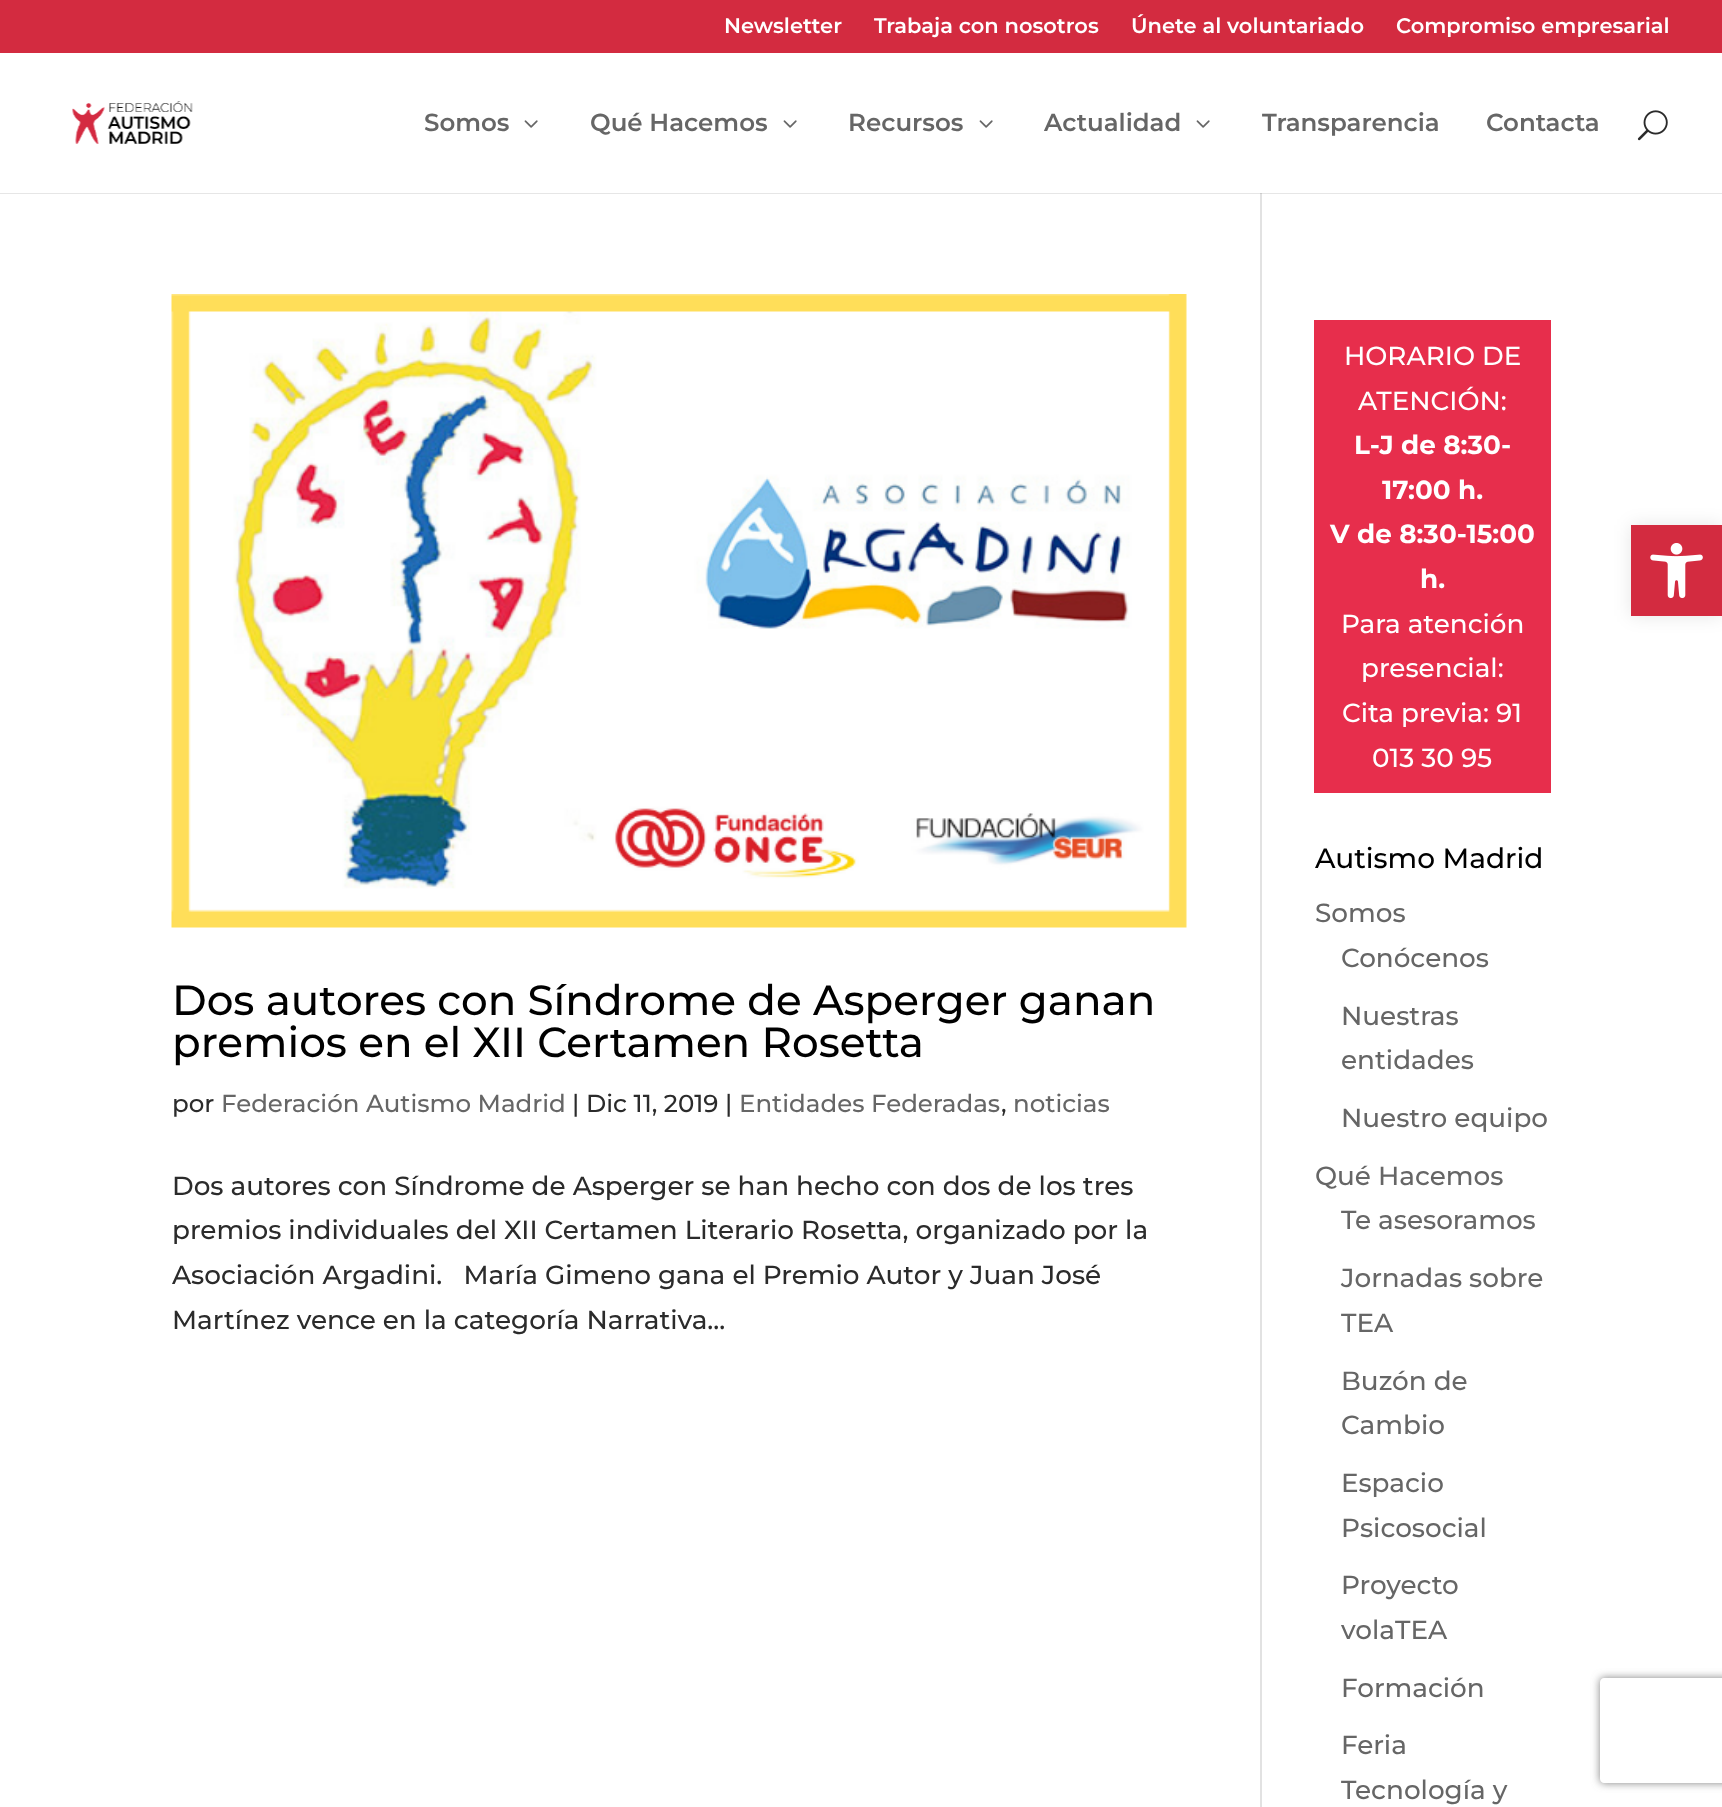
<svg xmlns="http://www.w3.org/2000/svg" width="1722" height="1807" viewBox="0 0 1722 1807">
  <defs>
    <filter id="blur1" x="-50%" y="-200%" width="200%" height="500%"><feGaussianBlur stdDeviation="9"/></filter>
    <clipPath id="clip1"><path d="M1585 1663H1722V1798H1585ZM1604 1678H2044C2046 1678 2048 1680 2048 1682V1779C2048 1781 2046 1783 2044 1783H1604C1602 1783 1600 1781 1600 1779V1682C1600 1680 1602 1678 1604 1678Z" clip-rule="evenodd"/></clipPath>
    <filter id="blur2" x="-50%" y="-200%" width="200%" height="500%"><feGaussianBlur stdDeviation="4.5"/></filter>
  </defs>
  <rect width="100%" height="100%" fill="#ffffff"/>
  <rect x="0" y="193" width="1722" height="1" fill="#e6e6e6"/>
  <rect x="0" y="0" width="1722" height="53" fill="#d32b40"/>
  <text x="724" y="33" font-family="'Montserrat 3'" font-size="21" font-weight="100" fill="#ffffff">Newsletter</text>
  <text x="874" y="33" font-family="'Montserrat 3'" font-size="21" font-weight="100" fill="#ffffff">Trabaja con nosotros</text>
  <text x="1131" y="33" font-family="'Montserrat 3'" font-size="21" font-weight="100" fill="#ffffff">Únete al voluntariado</text>
  <text x="1396" y="33" font-family="'Montserrat 3'" font-size="21" font-weight="100" fill="#ffffff">Compromiso empresarial</text>
  <image x="72" y="101" width="121" height="43" href="img1.png"/>
  <text x="424" y="131" font-family="'Montserrat 3'" font-size="24.5" font-weight="100" fill="#666666">Somos</text>
  <image x="524" y="120" width="14" height="8" href="img2.png"/>
  <text x="590" y="131" font-family="'Montserrat 3'" font-size="24.5" font-weight="100" fill="#666666">Qué Hacemos</text>
  <image x="783" y="120" width="14" height="8" href="img2.png"/>
  <text x="848" y="131" font-family="'Montserrat 3'" font-size="24.5" font-weight="100" fill="#666666">Recursos</text>
  <image x="979" y="120" width="14" height="8" href="img2.png"/>
  <text x="1044" y="131" font-family="'Montserrat 3'" font-size="24.5" font-weight="100" fill="#666666">Actualidad</text>
  <image x="1196" y="120" width="14" height="8" href="img2.png"/>
  <text x="1262" y="131" font-family="'Montserrat 3'" font-size="24.5" font-weight="100" fill="#666666">Transparencia</text>
  <text x="1486" y="131" font-family="'Montserrat 3'" font-size="24.5" font-weight="100" fill="#666666">Contacta</text>
  <image x="1637" y="110" width="31" height="31" href="img3.png"/>
  <rect x="1260" y="193" width="2" height="1614" fill="#e2e2e2"/>
  <rect x="1260" y="193" width="2" height="1" fill="#cbcbcb"/>
  <image x="171" y="294" width="1016" height="634" href="img4.png"/>
  <text x="172" y="1015" font-family="Montserrat" font-size="42" font-weight="100" fill="#000000">Dos autores con Síndrome de Asperger ganan</text>
  <text x="172" y="1057" font-family="Montserrat" font-size="42" font-weight="100" fill="#000000">premios en el XII Certamen Rosetta</text>
  <text x="172" y="1112" font-family="Montserrat" font-size="24.5" font-weight="100" fill="#2b2b2b">por</text>
  <text x="221" y="1112" font-family="Montserrat" font-size="24.5" font-weight="100" fill="#666666">Federación Autismo Madrid</text>
  <text x="572" y="1112" font-family="Montserrat" font-size="24.5" font-weight="100" fill="#2b2b2b">| Dic 11, 2019 |</text>
  <text x="739" y="1112" font-family="Montserrat" font-size="24.5" font-weight="100" fill="#666666">Entidades Federadas</text>
  <text x="1001" y="1112" font-family="Montserrat" font-size="24.5" font-weight="100" fill="#2b2b2b">,</text>
  <text x="1013" y="1112" font-family="Montserrat" font-size="24.5" font-weight="100" fill="#666666">noticias</text>
  <text x="172" y="1195" font-family="Montserrat" font-size="26.25" font-weight="100" fill="#2b2b2b">Dos autores con Síndrome de Asperger se han hecho con dos de los tres</text>
  <text x="172" y="1239" font-family="Montserrat" font-size="26.25" font-weight="100" fill="#2b2b2b">premios individuales del XII Certamen Literario Rosetta, organizado por la</text>
  <text x="172" y="1284" font-family="Montserrat" font-size="26.25" font-weight="100" fill="#2b2b2b" xml:space="preserve">Asociación Argadini.   María Gimeno gana el Premio Autor y Juan José</text>
  <text x="172" y="1329" font-family="Montserrat" font-size="26.25" font-weight="100" fill="#2b2b2b">Martínez vence en la categoría Narrativa...</text>
  <rect x="1314" y="320" width="237" height="473" fill="#e72e4c"/>
  <text x="1344" y="365" font-family="Montserrat" font-size="26.25" font-weight="100" fill="#ffffff">HORARIO DE</text>
  <text x="1358" y="410" font-family="Montserrat" font-size="26.25" font-weight="100" fill="#ffffff">ATENCIÓN:</text>
  <text x="1354" y="454" font-family="'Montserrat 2'" font-size="26.25" font-weight="100" fill="#ffffff">L-J de 8:30-</text>
  <text x="1382" y="499" font-family="'Montserrat 2'" font-size="26.25" font-weight="100" fill="#ffffff">17:00 h.</text>
  <text x="1330" y="543" font-family="'Montserrat 2'" font-size="26.25" font-weight="100" fill="#ffffff">V de 8:30-15:00</text>
  <text x="1420" y="588" font-family="'Montserrat 2'" font-size="26.25" font-weight="100" fill="#ffffff">h.</text>
  <text x="1341" y="633" font-family="Montserrat" font-size="26.25" font-weight="100" fill="#ffffff">Para atención</text>
  <text x="1361" y="677" font-family="Montserrat" font-size="26.25" font-weight="100" fill="#ffffff">presencial:</text>
  <text x="1342" y="722" font-family="Montserrat" font-size="26.25" font-weight="100" fill="#ffffff">Cita previa: 91</text>
  <text x="1372" y="767" font-family="Montserrat" font-size="26.25" font-weight="100" fill="#ffffff">013 30 95</text>
  <text x="1315" y="868" font-family="Montserrat" font-size="28" font-weight="100" fill="#000000">Autismo Madrid</text>
  <text x="1315" y="922" font-family="Montserrat" font-size="26.25" font-weight="100" fill="#666666">Somos</text>
  <text x="1341" y="967" font-family="Montserrat" font-size="26.25" font-weight="100" fill="#666666">Conócenos</text>
  <text x="1341" y="1025" font-family="Montserrat" font-size="26.25" font-weight="100" fill="#666666">Nuestras</text>
  <text x="1341" y="1069" font-family="Montserrat" font-size="26.25" font-weight="100" fill="#666666">entidades</text>
  <text x="1341" y="1127" font-family="Montserrat" font-size="26.25" font-weight="100" fill="#666666">Nuestro equipo</text>
  <text x="1315" y="1185" font-family="Montserrat" font-size="26.25" font-weight="100" fill="#666666">Qué Hacemos</text>
  <text x="1341" y="1229" font-family="Montserrat" font-size="26.25" font-weight="100" fill="#666666">Te asesoramos</text>
  <text x="1341" y="1287" font-family="Montserrat" font-size="26.25" font-weight="100" fill="#666666">Jornadas sobre</text>
  <text x="1341" y="1332" font-family="Montserrat" font-size="26.25" font-weight="100" fill="#666666">TEA</text>
  <text x="1341" y="1390" font-family="Montserrat" font-size="26.25" font-weight="100" fill="#666666">Buzón de</text>
  <text x="1341" y="1434" font-family="Montserrat" font-size="26.25" font-weight="100" fill="#666666">Cambio</text>
  <text x="1341" y="1492" font-family="Montserrat" font-size="26.25" font-weight="100" fill="#666666">Espacio</text>
  <text x="1341" y="1537" font-family="Montserrat" font-size="26.25" font-weight="100" fill="#666666">Psicosocial</text>
  <text x="1341" y="1594" font-family="Montserrat" font-size="26.25" font-weight="100" fill="#666666">Proyecto</text>
  <text x="1341" y="1639" font-family="Montserrat" font-size="26.25" font-weight="100" fill="#666666">volaTEA</text>
  <text x="1341" y="1697" font-family="Montserrat" font-size="26.25" font-weight="100" fill="#666666">Formación</text>
  <text x="1341" y="1754" font-family="Montserrat" font-size="26.25" font-weight="100" fill="#666666">Feria</text>
  <text x="1341" y="1799" font-family="Montserrat" font-size="26.25" font-weight="100" fill="#666666">Tecnología y</text>
  <rect x="1631" y="525" width="91" height="91" fill="#000000" fill-opacity="0.1" filter="url(#blur1)"/>
  <rect x="1631" y="525" width="91" height="91" fill="#d32b40"/>
  <image x="1650" y="543" width="53" height="56" href="img5.png"/>
  <g clip-path="url(#clip1)">
    <rect x="1600" y="1678" width="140" height="105" rx="4" fill="#808080" filter="url(#blur2)"/>
  </g>
</svg>
